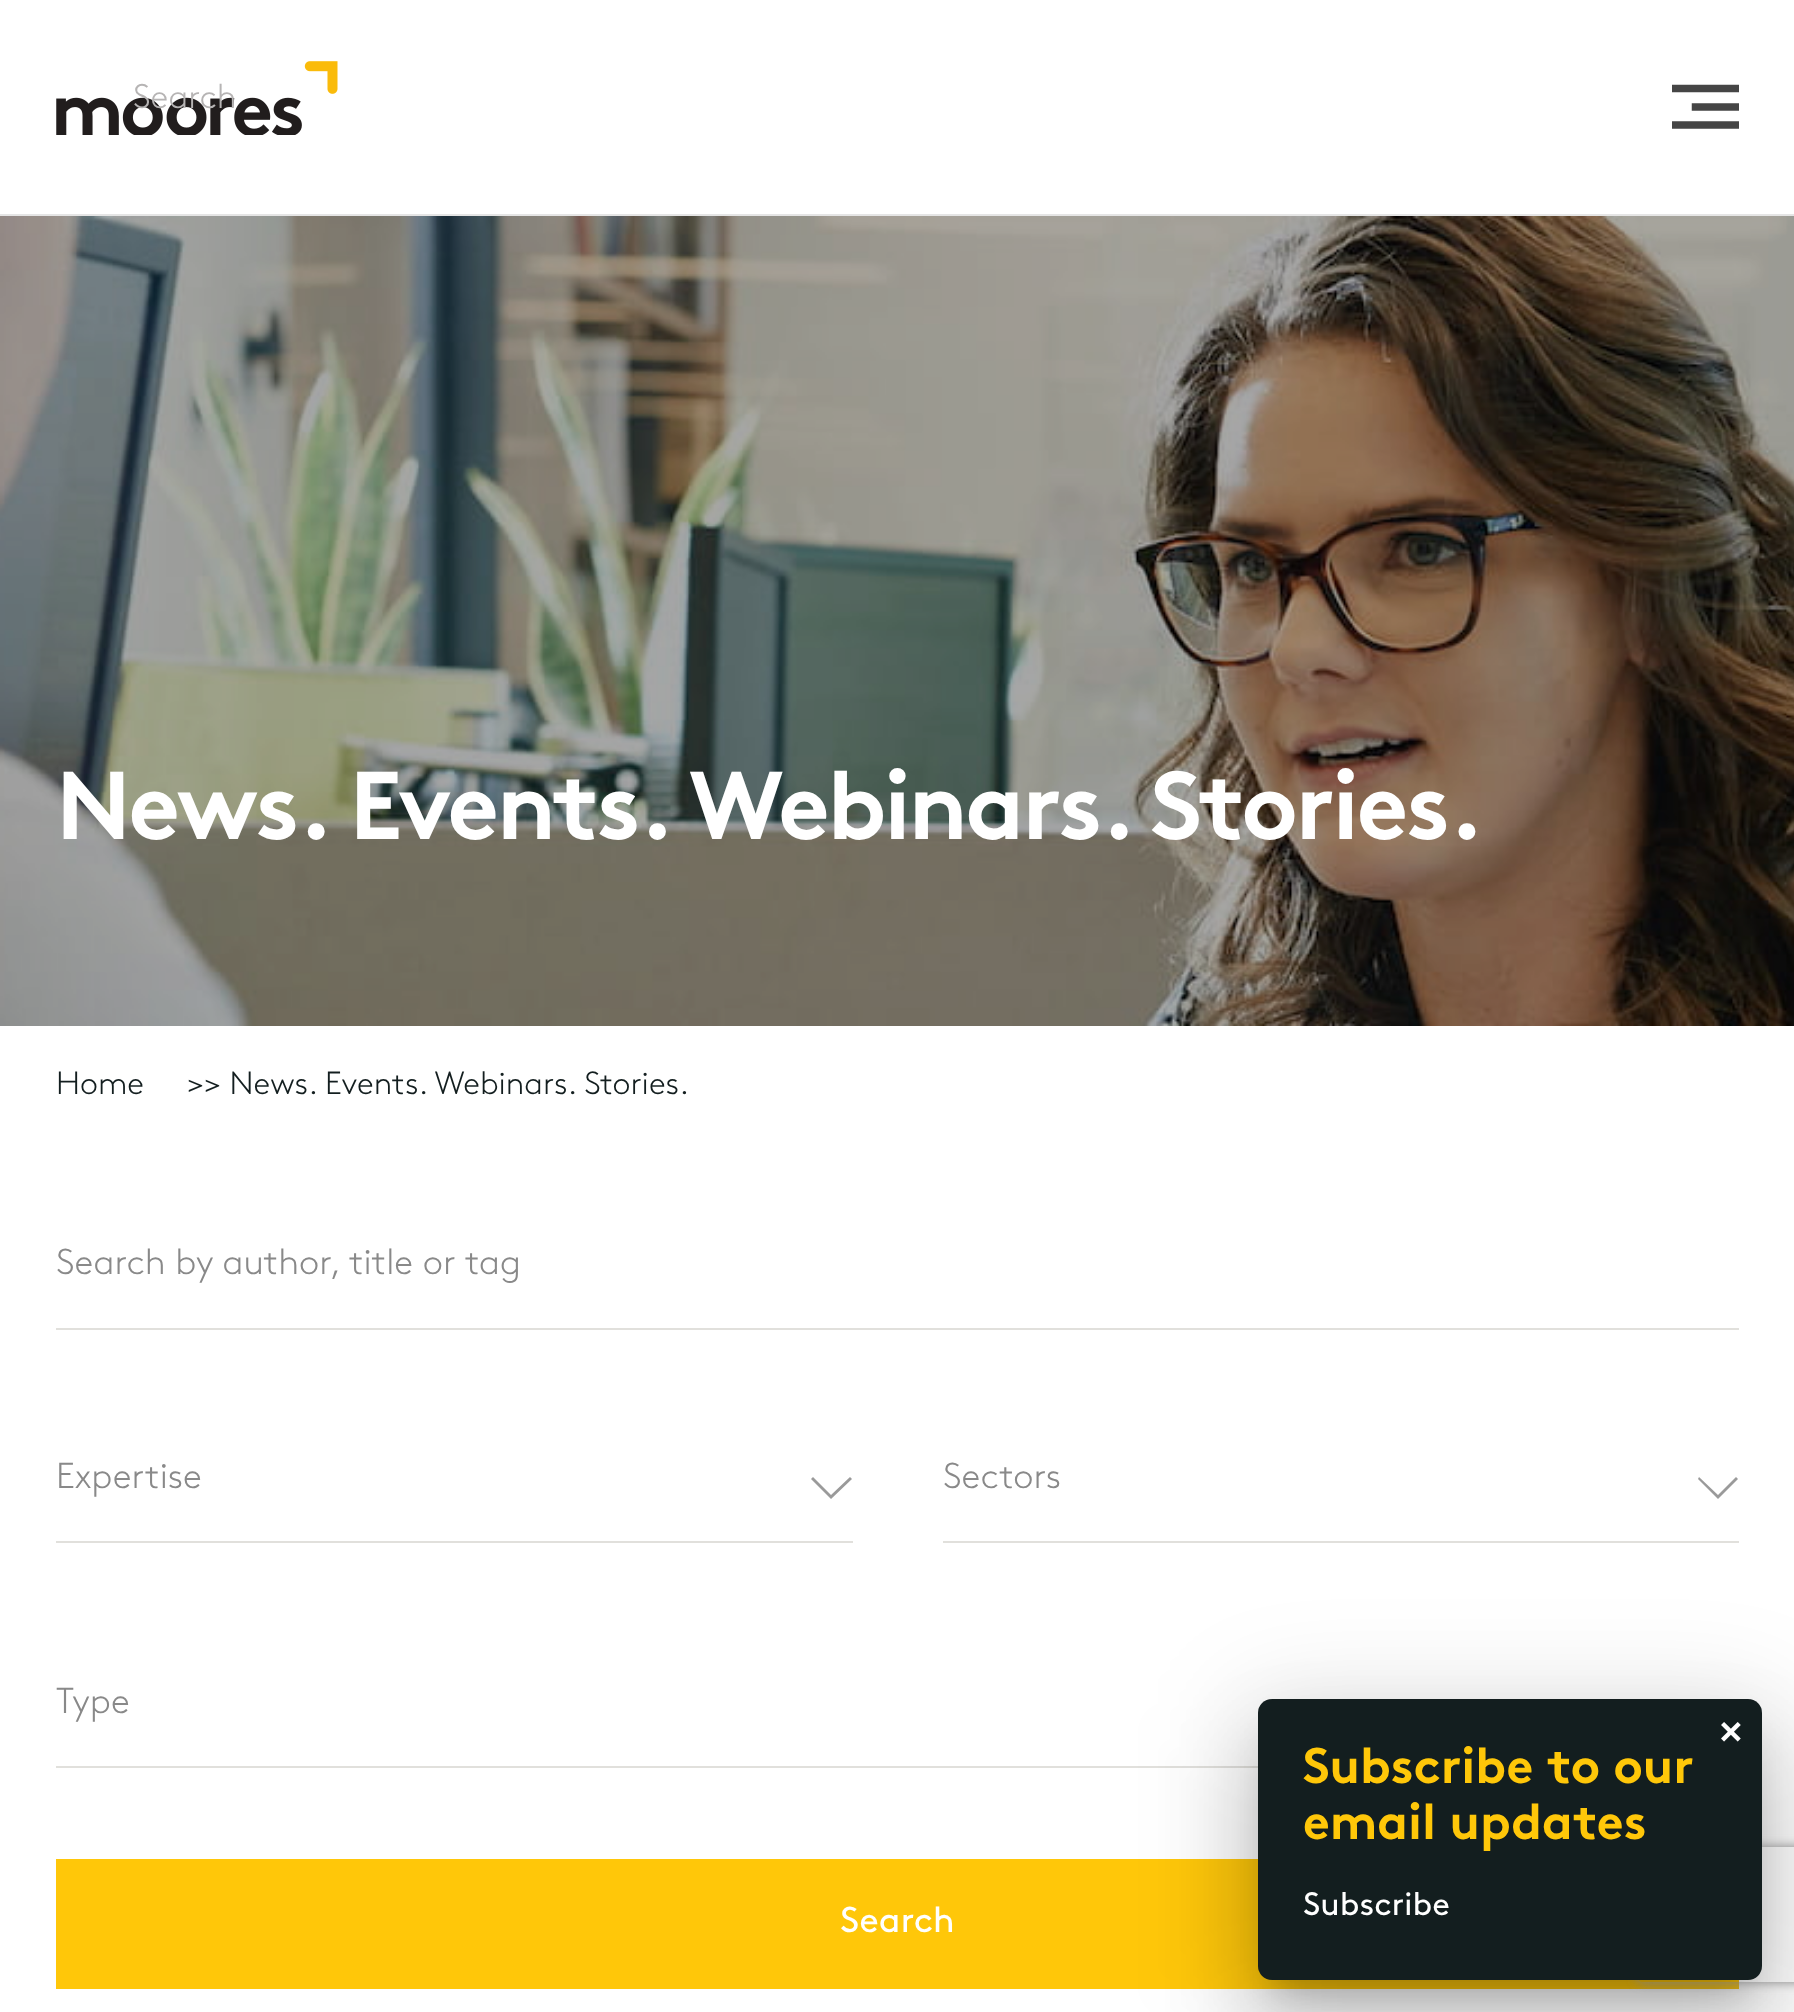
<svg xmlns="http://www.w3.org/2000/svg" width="1794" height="2012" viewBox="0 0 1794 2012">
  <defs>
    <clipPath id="clip1"><rect x="1672" y="81" width="67" height="52"/></clipPath>
    <filter id="blur1" x="-50%" y="-200%" width="200%" height="500%"><feGaussianBlur stdDeviation="52"/></filter>
    <filter id="blur2" x="-50%" y="-200%" width="200%" height="500%"><feGaussianBlur stdDeviation="43"/></filter>
    <filter id="blur3" x="-50%" y="-200%" width="200%" height="500%"><feGaussianBlur stdDeviation="17"/></filter>
    <clipPath id="clip2"><path d="M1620 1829H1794V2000H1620ZM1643 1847H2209C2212 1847 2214 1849 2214 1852V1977C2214 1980 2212 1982 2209 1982H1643C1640 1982 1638 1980 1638 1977V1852C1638 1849 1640 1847 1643 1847Z" clip-rule="evenodd"/></clipPath>
    <filter id="blur4" x="-50%" y="-200%" width="200%" height="500%"><feGaussianBlur stdDeviation="5.5"/></filter>
  </defs>
  <rect width="100%" height="100%" fill="#ffffff"/>
  <rect x="0" y="214" width="1794" height="2" fill="#e5e5e5"/>
  <image x="56" y="61" width="282" height="74" href="img1.png"/>
  <g clip-path="url(#clip1)">
    <path d="M1675.5 88.5H1735.5M1675.5 125H1735.5M1695.5 107H1735.5" fill="none" stroke="#454545" stroke-width="7.5" stroke-linecap="square"/>
  </g>
  <text x="133" y="108" font-family="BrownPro" font-size="34" font-weight="300" fill="#b6b4b4">Search</text>
  <image x="0" y="216" width="1794" height="810" href="img2.png"/>
  <text x="56" y="839" font-family="BrownPro" font-size="96" font-weight="bold" letter-spacing="-2.4" fill="#ffffff">News. Events.</text>
  <text x="689" y="839" font-family="BrownPro" font-size="96" font-weight="bold" letter-spacing="-2.4" fill="#ffffff">Webinars. Stories.</text>
  <text x="56" y="1094" font-family="BrownPro" font-size="32" font-weight="300" fill="#131e1f">Home</text>
  <text x="187" y="1094" font-family="BrownPro" font-size="32" font-weight="300" fill="#131e1f">&gt;&gt; News. Events. Webinars. Stories.</text>
  <rect x="56" y="1328" width="1683" height="2" fill="#e1e0dc"/>
  <text x="56" y="1274" font-family="BrownPro" font-size="36" font-weight="300" fill="#898989">Search by author, title or tag</text>
  <rect x="56" y="1541" width="797" height="2" fill="#e1e0dc"/>
  <text x="56" y="1488" font-family="BrownPro" font-size="36" font-weight="300" fill="#898989">Expertise</text>
  <path d="M813 1477L811 1479L831 1499L852 1479L850 1477L831 1495Z" fill="#9a9a9a"/>
  <rect x="943" y="1541" width="796" height="2" fill="#e1e0dc"/>
  <text x="943" y="1488" font-family="BrownPro" font-size="36" font-weight="300" fill="#898989">Sectors</text>
  <path d="M1699 1477L1698 1479L1718 1499L1738 1479L1736 1477L1718 1495Z" fill="#9a9a9a"/>
  <rect x="56" y="1766" width="1202" height="2" fill="#e1e0dc"/>
  <text x="56" y="1713" font-family="BrownPro" font-size="36" font-weight="300" fill="#898989">Type</text>
  <rect x="56" y="1859" width="1683" height="130" fill="#ffc709"/>
  <text x="840" y="1932" font-family="BrownPro" font-size="36" fill="#ffffff">Search</text>
  <rect x="1240" y="1701" width="540" height="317" rx="32" fill="#000000" fill-opacity="0.12" filter="url(#blur1)"/>
  <rect x="1251" y="1746" width="518" height="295" rx="20" fill="#000000" fill-opacity="0.14" filter="url(#blur2)"/>
  <rect x="1274" y="1739" width="472" height="250" fill="#000000" fill-opacity="0.2" filter="url(#blur3)"/>
  <g clip-path="url(#clip2)">
    <rect x="1638" y="1847" width="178" height="135" rx="5" fill="#808080" filter="url(#blur4)"/>
  </g>
  <rect x="1258" y="1699" width="504" height="281" rx="14" fill="#131e1f"/>
  <text x="1718" y="1744" font-family="BrownPro" font-size="47" fill="#ffffff">×</text>
  <text x="1303" y="1783" font-family="BrownPro" font-size="50" font-weight="bold" fill="#ffc709">Subscribe to our</text>
  <text x="1303" y="1839" font-family="BrownPro" font-size="50" font-weight="bold" fill="#ffc709">email updates</text>
  <text x="1303" y="1915" font-family="BrownPro" font-size="32.5" fill="#ffffff">Subscribe</text>
</svg>
